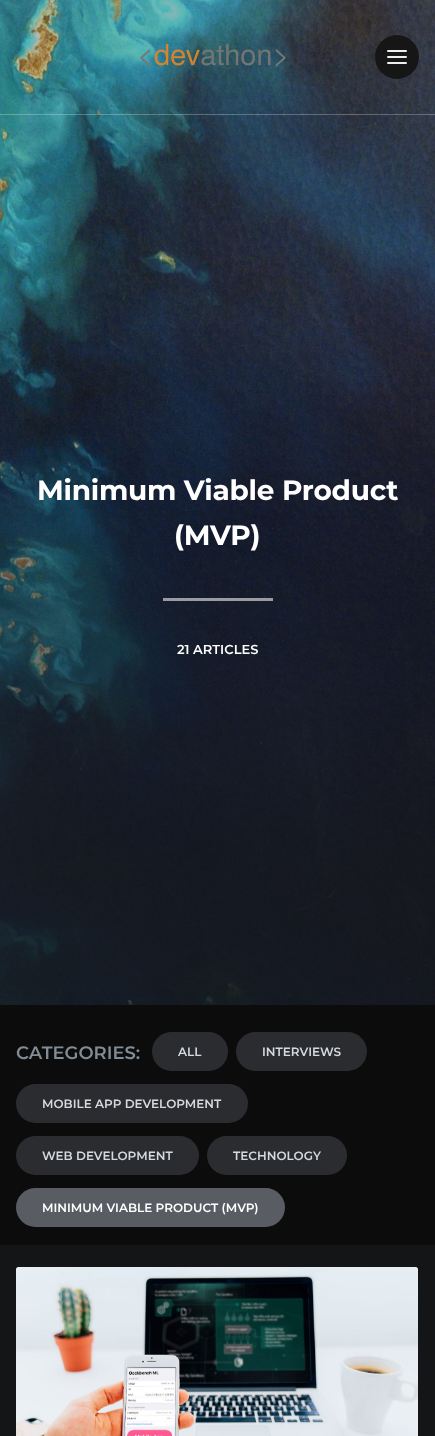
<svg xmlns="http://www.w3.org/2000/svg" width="435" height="1436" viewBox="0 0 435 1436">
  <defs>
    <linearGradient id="g1" gradientUnits="userSpaceOnUse" x1="217" y1="302" x2="218" y2="1005"><stop offset="0" stop-color="#16181a" stop-opacity="0"/><stop offset="0.78" stop-color="#16181a" stop-opacity="0.7"/><stop offset="0.99" stop-color="#16181a" stop-opacity="0.7"/></linearGradient>
  </defs>
  <rect width="100%" height="100%" fill="#131517"/>
  <image x="0" y="0" width="435" height="1005" href="img2.png"/>
  <rect x="0" y="114" width="435" height="1" fill="#f0f3f6" fill-opacity="0.28"/>
  <image x="140" y="43" width="146" height="24" href="img1.png"/>
  <circle cx="397" cy="57" r="22" fill="#161617"/>
  <path d="M388 57H406M388 51H406M388 63H406" fill="none" stroke="#eeeeee" stroke-width="2" stroke-linecap="round" stroke-linejoin="round"/>
  <rect x="0" y="328" width="435" height="677" fill="url(#g1)"/>
  <text x="37" y="500" font-family="Montserrat" font-size="28" font-weight="bold" letter-spacing="-0.25" fill="#ffffff">Minimum Viable Product</text>
  <text x="174" y="545" font-family="Montserrat" font-size="28" font-weight="bold" letter-spacing="-0.25" fill="#ffffff">(MVP)</text>
  <rect x="163" y="598" width="110" height="3" fill="#9b9ba3"/>
  <text x="177" y="654" font-family="Montserrat" font-size="13" font-weight="600" fill="#ffffff">21 ARTICLES</text>
  <rect x="0" y="1005" width="435" height="240" fill="#0c0c0c"/>
  <text x="16" y="1059" font-family="Montserrat" font-size="18" font-weight="600" fill="#828c95">CATEGORIES:</text>
  <rect x="152" y="1032" width="76" height="39" rx="19.5" fill="#2b2c2f"/>
  <text x="178" y="1056" font-family="Montserrat" font-size="12" font-weight="600" fill="#d4dae0">ALL</text>
  <rect x="236" y="1032" width="131" height="39" rx="19.5" fill="#2b2c2f"/>
  <text x="262" y="1056" font-family="Montserrat" font-size="12" font-weight="600" fill="#d4dae0">INTERVIEWS</text>
  <rect x="16" y="1084" width="232" height="39" rx="19.5" fill="#2b2c2f"/>
  <text x="42" y="1108" font-family="Montserrat" font-size="12" font-weight="600" fill="#d4dae0">MOBILE APP DEVELOPMENT</text>
  <rect x="16" y="1136" width="183" height="39" rx="19.5" fill="#2b2c2f"/>
  <text x="42" y="1160" font-family="Montserrat" font-size="12" font-weight="600" fill="#d4dae0">WEB DEVELOPMENT</text>
  <rect x="207" y="1136" width="140" height="39" rx="19.5" fill="#2b2c2f"/>
  <text x="233" y="1160" font-family="Montserrat" font-size="12" font-weight="600" fill="#d4dae0">TECHNOLOGY</text>
  <rect x="16" y="1188" width="269" height="39" rx="19.5" fill="#5a5c63"/>
  <text x="42" y="1212" font-family="Montserrat" font-size="12" font-weight="600" fill="#ffffff">MINIMUM VIABLE PRODUCT (MVP)</text>
  <rect x="16" y="1267" width="402" height="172" rx="3" fill="#ffffff"/>
  <image x="16" y="1267" width="402" height="169" href="img3.png"/>
</svg>
